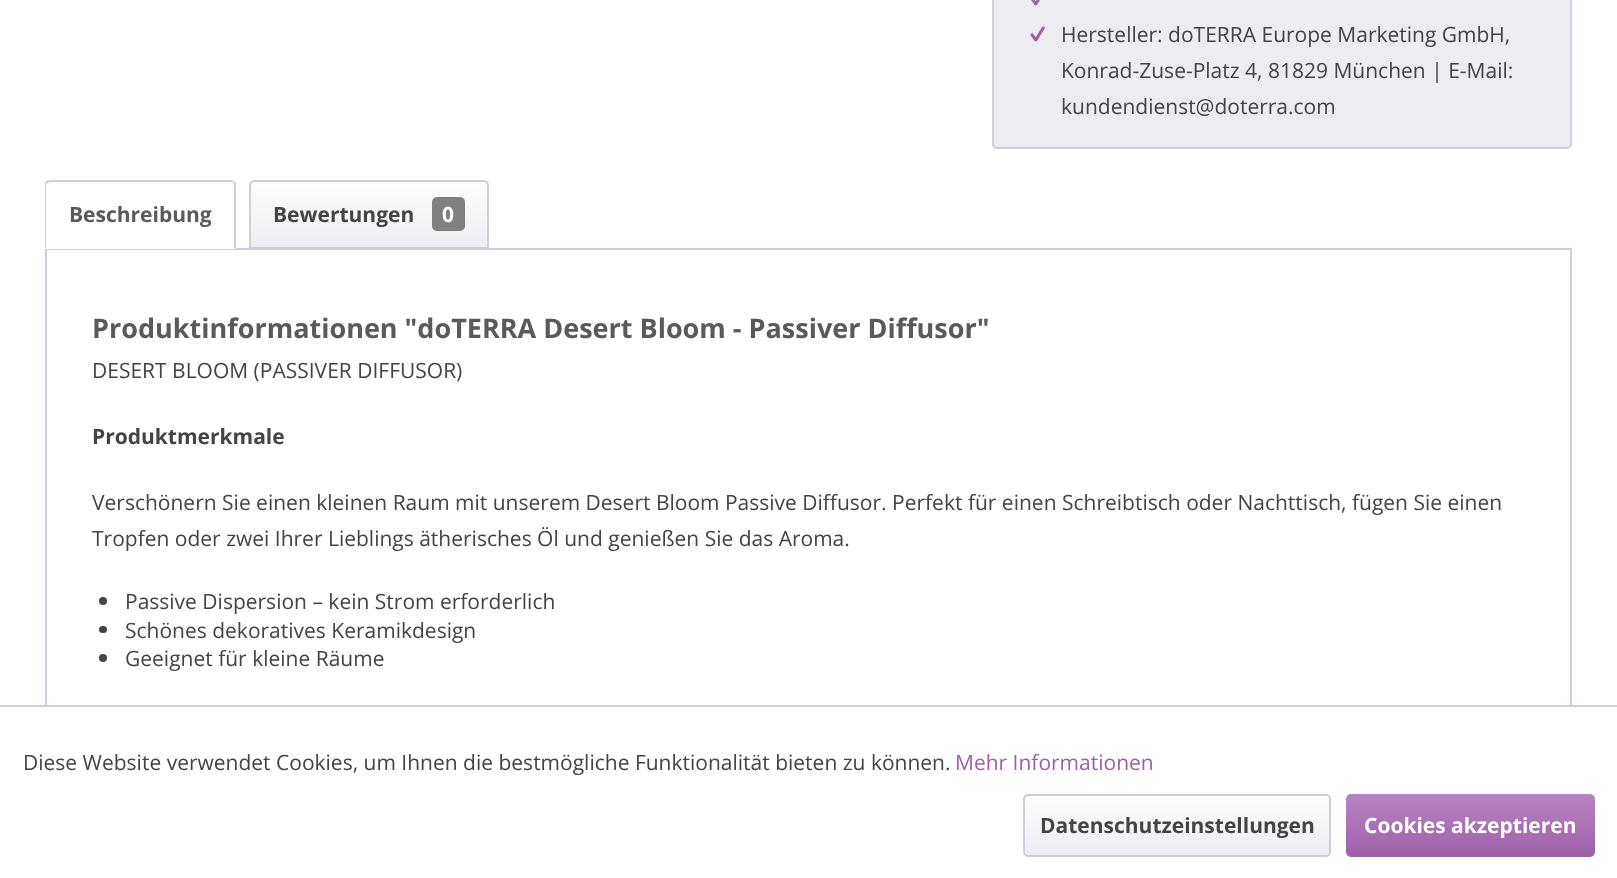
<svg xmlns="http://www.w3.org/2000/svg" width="1617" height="878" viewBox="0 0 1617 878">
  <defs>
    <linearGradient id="g1" gradientUnits="userSpaceOnUse" x1="369" y1="181" x2="369" y2="248"><stop offset="0" stop-color="#ffffff"/><stop offset="1" stop-color="#ececf2"/></linearGradient>
    <linearGradient id="g2" gradientUnits="userSpaceOnUse" x1="1177" y1="795" x2="1177" y2="855"><stop offset="0" stop-color="#ffffff"/><stop offset="1" stop-color="#ececf2"/></linearGradient>
    <linearGradient id="g3" gradientUnits="userSpaceOnUse" x1="1470" y1="794" x2="1470" y2="857"><stop offset="0" stop-color="#b983c3"/><stop offset="1" stop-color="#9d60a9"/></linearGradient>
  </defs>
  <rect width="100%" height="100%" fill="#ffffff"/>
  <rect x="993" y="-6" width="578" height="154" rx="4" fill="#ececf2" stroke="#cecedd" stroke-width="2"/>
  <image x="1031" y="0" width="9" height="6" href="img1.png"/>
  <image x="1030" y="26" width="15" height="16" href="img2.png"/>
  <text x="1061" y="42" font-family="Open Sans" font-size="21" fill="#444444">Hersteller: doTERRA Europe Marketing GmbH,</text>
  <text x="1061" y="78" font-family="Open Sans" font-size="21" fill="#444444">Konrad-Zuse-Platz 4, 81829 München | E-Mail:</text>
  <text x="1061" y="114" font-family="Open Sans" font-size="21" fill="#444444">kundendienst@doterra.com</text>
  <rect x="46" y="249" width="1525" height="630" fill="none" stroke="#cecedd" stroke-width="2"/>
  <path d="M50 180H231C234 180 236 182 236 185V249H45V185C45 182 47 180 50 180Z" fill="#ffffff"/>
  <path d="M50 180C48 180 47 181 46 181L48 183L50 182H231H233L234 181L231 180Z" fill="#cecedd"/>
  <path d="M236 183V249L234 248V184L233 182L234 181Z" fill="#cecedd"/>
  <path d="M236 249L234 248H46L45 249Z" fill="#ffffff"/>
  <path d="M45 249L46 248V184L48 183L46 181L45 184Z" fill="#cecedd"/>
  <text x="69" y="222" font-family="Open Sans" font-size="21" font-weight="bold" fill="#5a5a5a">Beschreibung</text>
  <path d="M254 182H485C486.5 182 488 183.5 488 185V248H251V185C251 183.5 252.5 182 254 182Z" fill="url(#g1)"/>
  <path d="M254 181H484C486 181 488 183 488 185V248H250V185C250 183 252 181 254 181Z" fill="none" stroke="#cecedd" stroke-width="2"/>
  <text x="273" y="222" font-family="Open Sans" font-size="21" font-weight="bold" fill="#444444">Bewertungen</text>
  <rect x="432" y="197" width="33" height="34" rx="5" fill="#808080"/>
  <text x="442" y="222" font-family="Open Sans" font-size="21" font-weight="bold" fill="#ffffff">0</text>
  <text x="92" y="338" font-family="Open Sans" font-size="27" font-weight="bold" fill="#5a5a5a">Produktinformationen "doTERRA Desert Bloom - Passiver Diffusor"</text>
  <text x="92" y="378" font-family="Open Sans" font-size="21" fill="#444444">DESERT BLOOM (PASSIVER DIFFUSOR)</text>
  <text x="92" y="444" font-family="Open Sans" font-size="21" font-weight="bold" fill="#444444">Produktmerkmale</text>
  <text x="92" y="510" font-family="Open Sans" font-size="21" fill="#444444">Verschönern Sie einen kleinen Raum mit unserem Desert Bloom Passive Diffusor. Perfekt für einen Schreibtisch oder Nachttisch, fügen Sie einen</text>
  <text x="92" y="546" font-family="Open Sans" font-size="21" fill="#444444">Tropfen oder zwei Ihrer Lieblings ätherisches Öl und genießen Sie das Aroma.</text>
  <circle cx="103" cy="601" r="4" fill="#444444"/>
  <text x="125" y="609" font-family="Open Sans" font-size="21" fill="#444444">Passive Dispersion – kein Strom erforderlich</text>
  <rect x="99" y="626" width="8" height="7" rx="3.5" fill="#444444"/>
  <text x="125" y="638" font-family="Open Sans" font-size="21" fill="#444444">Schönes dekoratives Keramikdesign</text>
  <circle cx="103" cy="658" r="4" fill="#444444"/>
  <text x="125" y="666" font-family="Open Sans" font-size="21" fill="#444444">Geeignet für kleine Räume</text>
  <rect x="45" y="707" width="1527" height="171" fill="#ffffff"/>
  <rect x="0" y="705" width="1617" height="2" fill="#cecedd"/>
  <text x="23" y="770" font-family="Open Sans" font-size="21" fill="#444444">Diese Website verwendet Cookies, um Ihnen die bestmögliche Funktionalität bieten zu können.</text>
  <text x="955" y="770" font-family="Open Sans" font-size="21" fill="#9d60a9">Mehr Informationen</text>
  <rect x="1025" y="795" width="304" height="60" rx="3" fill="url(#g2)"/>
  <rect x="1024" y="795" width="306" height="61" rx="4" fill="none" stroke="#cecedd" stroke-width="2"/>
  <text x="1040" y="833" font-family="Open Sans" font-size="21" font-weight="bold" fill="#444444">Datenschutzeinstellungen</text>
  <rect x="1346" y="794" width="249" height="63" rx="5" fill="url(#g3)"/>
  <text x="1364" y="833" font-family="Open Sans" font-size="21" font-weight="bold" fill="#ffffff">Cookies akzeptieren</text>
</svg>
